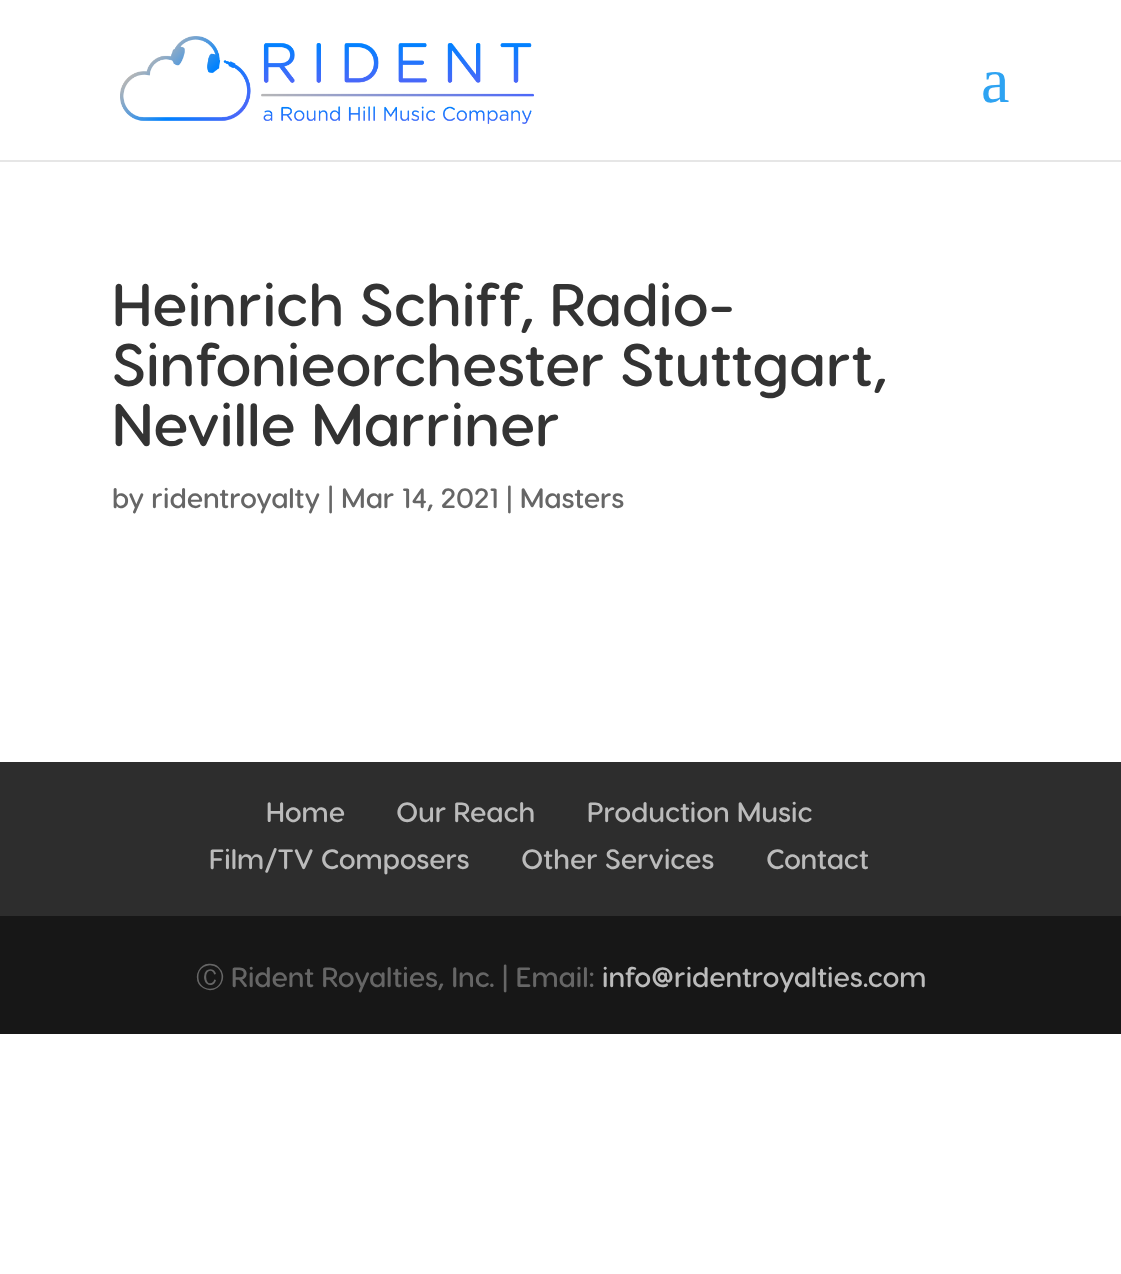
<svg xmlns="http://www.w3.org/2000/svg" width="1121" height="1274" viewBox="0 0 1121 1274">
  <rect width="100%" height="100%" fill="#ffffff"/>
  <rect x="0" y="160" width="1121" height="2" fill="#e6e6e6"/>
  <image x="120" y="36" width="414" height="88" href="img1.png"/>
  <text x="981" y="102" font-family="Liberation Serif" font-size="64" fill="#2ea3f2">a</text>
  <text x="112" y="326" font-family="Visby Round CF" font-size="60" font-weight="600" fill="#333333">Heinrich Schiff, Radio-</text>
  <text x="112" y="386" font-family="Visby Round CF" font-size="60" font-weight="600" fill="#333333">Sinfonieorchester Stuttgart,</text>
  <text x="112" y="446" font-family="Visby Round CF" font-size="60" font-weight="600" fill="#333333">Neville Marriner</text>
  <text x="112" y="508" font-family="Visby Round CF" font-size="28" font-weight="600" fill="#666666">by ridentroyalty | Mar 14, 2021 | Masters</text>
  <rect x="0" y="762" width="1121" height="154" fill="#2d2d2d"/>
  <text x="266" y="822" font-family="Visby Round CF" font-size="28" font-weight="600" fill="#bbbbbb">Home</text>
  <text x="396" y="822" font-family="Visby Round CF" font-size="28" font-weight="600" fill="#bbbbbb">Our Reach</text>
  <text x="587" y="822" font-family="Visby Round CF" font-size="28" font-weight="600" fill="#bbbbbb">Production Music</text>
  <text x="209" y="869" font-family="Visby Round CF" font-size="28" font-weight="600" fill="#bbbbbb">Film/TV Composers</text>
  <text x="521" y="869" font-family="Visby Round CF" font-size="28" font-weight="600" fill="#bbbbbb">Other Services</text>
  <text x="766" y="869" font-family="Visby Round CF" font-size="28" font-weight="600" fill="#bbbbbb">Contact</text>
  <rect x="0" y="916" width="1121" height="118" fill="#171717"/>
  <text x="196" y="987" font-family="WenQuanYi Zen Hei" font-size="28" font-weight="500" fill="#666666">Ⓒ</text>
  <text x="231" y="987" font-family="Visby Round CF" font-size="28" font-weight="600" fill="#666666">Rident Royalties, Inc. | Email:</text>
  <text x="602" y="987" font-family="Visby Round CF" font-size="28" font-weight="600" fill="#bbbbbb">info@ridentroyalties.com</text>
</svg>
